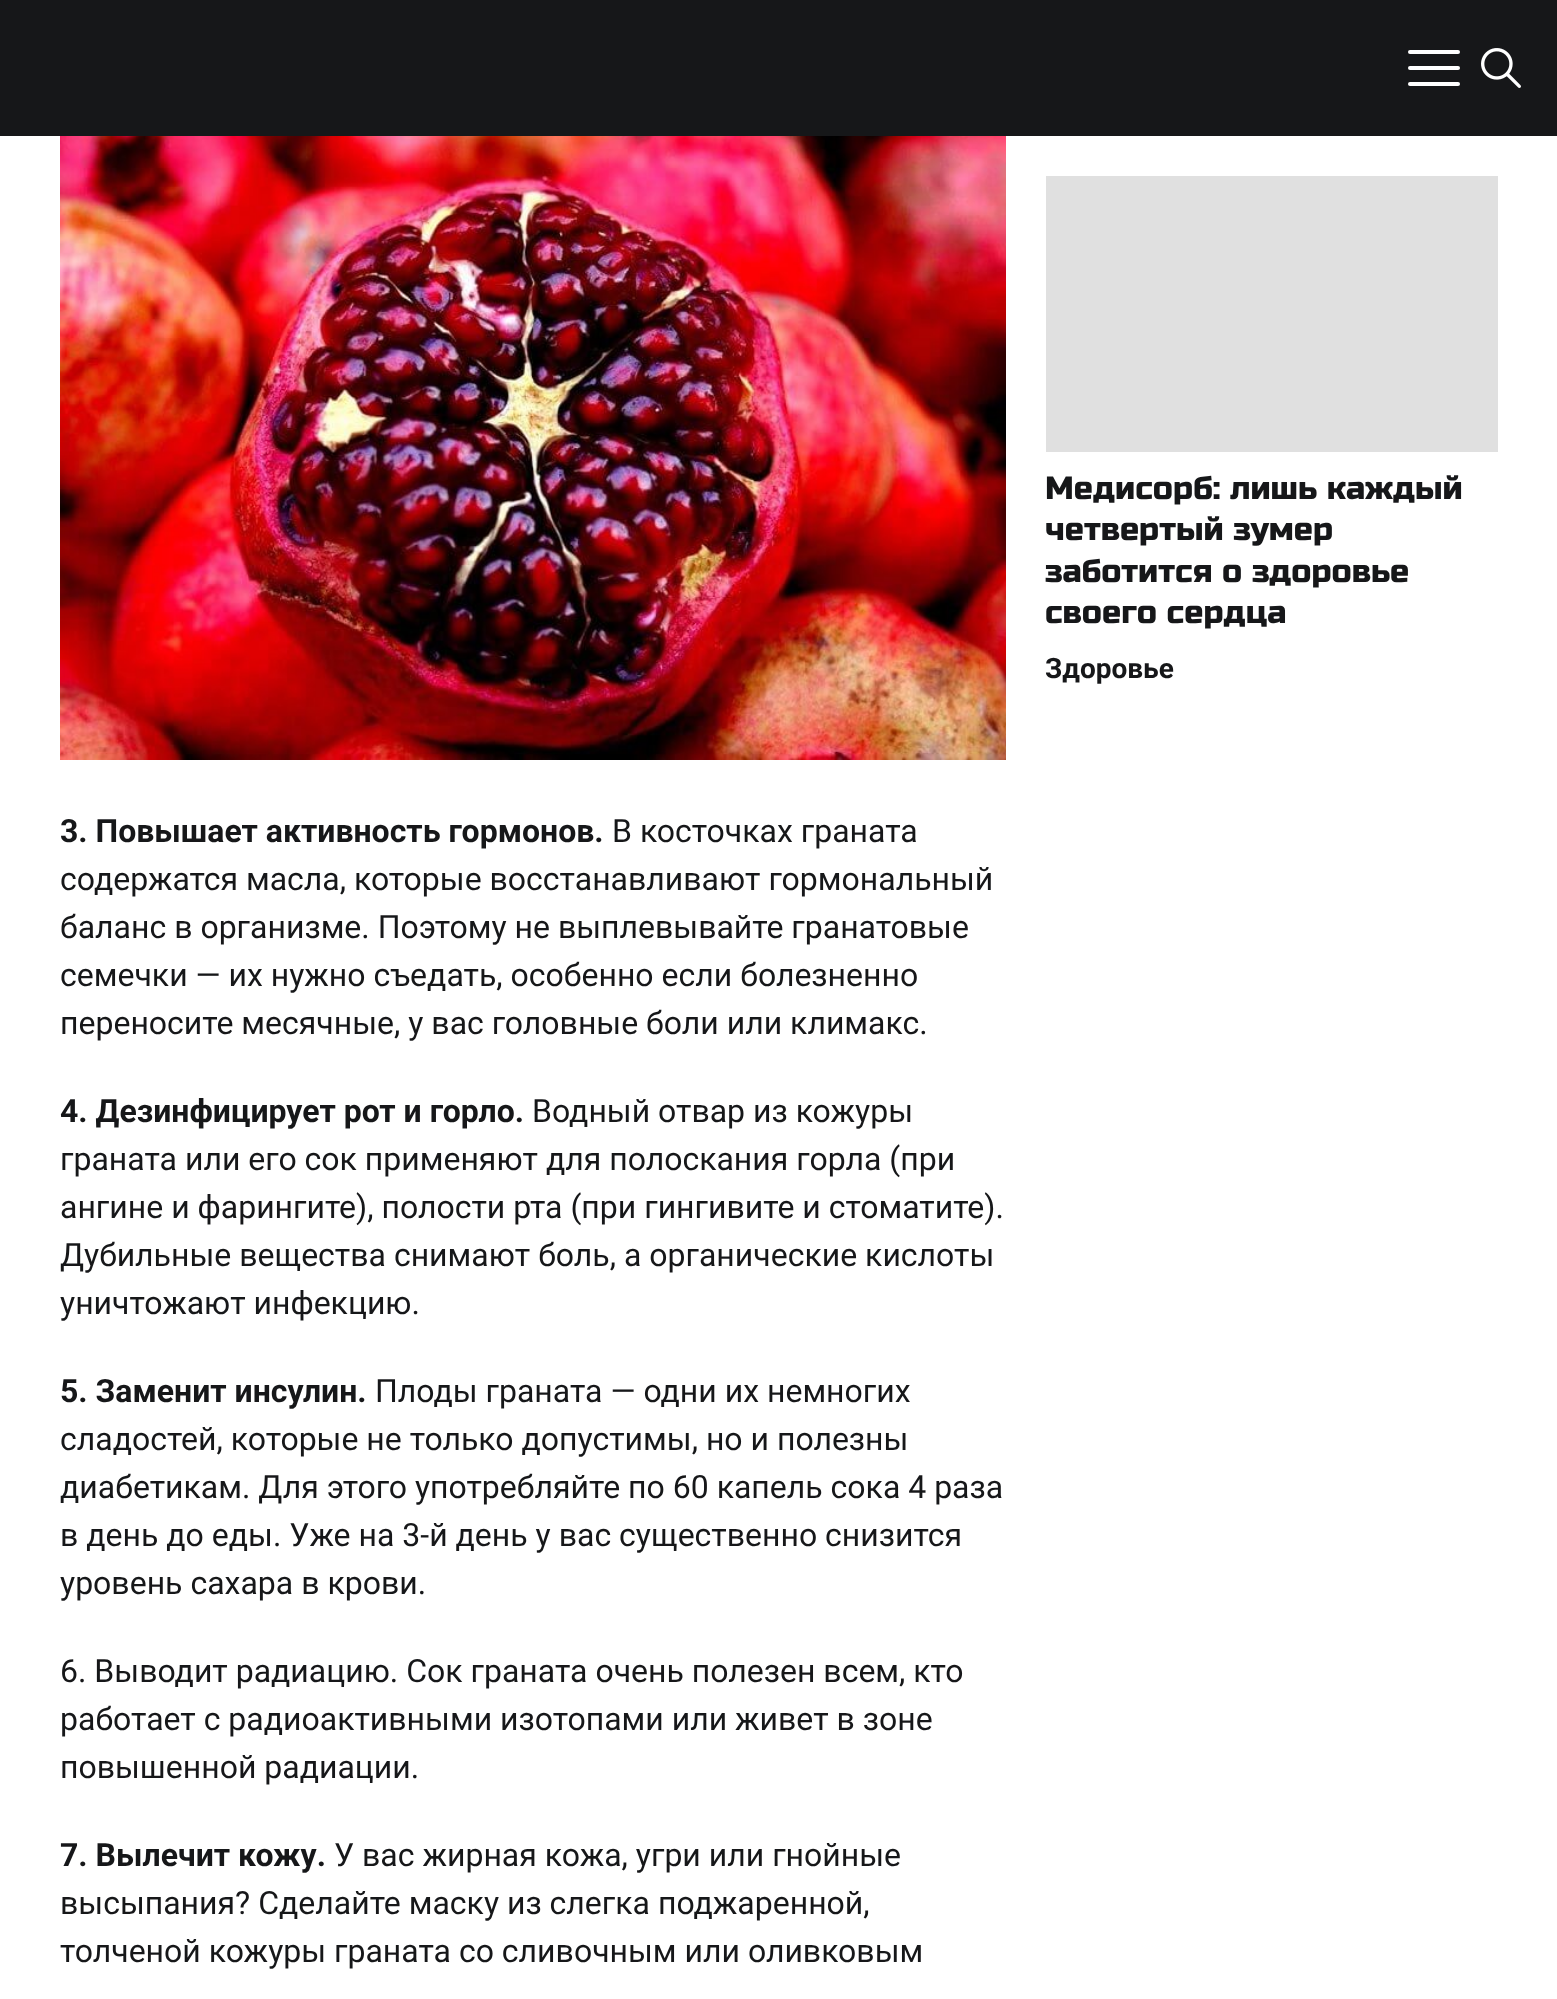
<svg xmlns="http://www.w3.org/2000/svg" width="1557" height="1999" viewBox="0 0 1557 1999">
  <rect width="100%" height="100%" fill="#ffffff"/>
  <rect x="0" y="0" width="1557" height="136" fill="#161719"/>
  <rect x="1408" y="66" width="52" height="4" rx="2" fill="#ffffff"/>
  <rect x="1408" y="50" width="52" height="4" rx="2" fill="#ffffff"/>
  <rect x="1408" y="82" width="52" height="4" rx="2" fill="#ffffff"/>
  <image x="1481" y="48" width="40" height="40" href="img1.png"/>
  <rect x="1046" y="176" width="452" height="276" fill="#e0e0e0"/>
  <text x="1045" y="499" font-family="Russo One" font-size="32" fill="#161719">Медисорб: лишь каждый</text>
  <text x="1045" y="540" font-family="Russo One" font-size="32" fill="#161719">четвертый зумер</text>
  <text x="1045" y="582" font-family="Russo One" font-size="32" fill="#161719">заботится о здоровье</text>
  <text x="1045" y="623" font-family="Russo One" font-size="32" fill="#161719">своего сердца</text>
  <text x="1045" y="678" font-family="Roboto" font-size="28" font-weight="bold" fill="#161719">Здоровье</text>
  <image x="60" y="136" width="946" height="624" href="img2.png"/>
  <text x="60" y="842" font-family="Roboto" font-size="32" font-weight="bold" fill="#161719">3. Повышает активность гормонов.</text>
  <text x="612" y="842" font-family="Roboto" font-size="32" fill="#161719">В косточках граната</text>
  <text x="60" y="890" font-family="Roboto" font-size="32" fill="#161719">содержатся масла, которые восстанавливают гормональный</text>
  <text x="60" y="938" font-family="Roboto" font-size="32" fill="#161719">баланс в организме. Поэтому не выплевывайте гранатовые</text>
  <text x="60" y="986" font-family="Roboto" font-size="32" fill="#161719">семечки — их нужно съедать, особенно если болезненно</text>
  <text x="60" y="1034" font-family="Roboto" font-size="32" fill="#161719">переносите месячные, у вас головные боли или климакс.</text>
  <text x="60" y="1122" font-family="Roboto" font-size="32" font-weight="bold" fill="#161719">4. Дезинфицирует рот и горло.</text>
  <text x="532" y="1122" font-family="Roboto" font-size="32" fill="#161719">Водный отвар из кожуры</text>
  <text x="60" y="1170" font-family="Roboto" font-size="32" fill="#161719">граната или его сок применяют для полоскания горла (при</text>
  <text x="60" y="1218" font-family="Roboto" font-size="32" fill="#161719">ангине и фарингите), полости рта (при гингивите и стоматите).</text>
  <text x="60" y="1266" font-family="Roboto" font-size="32" fill="#161719">Дубильные вещества снимают боль, а органические кислоты</text>
  <text x="60" y="1314" font-family="Roboto" font-size="32" fill="#161719">уничтожают инфекцию.</text>
  <text x="60" y="1402" font-family="Roboto" font-size="32" font-weight="bold" fill="#161719">5. Заменит инсулин.</text>
  <text x="375" y="1402" font-family="Roboto" font-size="32" fill="#161719">Плоды граната — одни их немногих</text>
  <text x="60" y="1450" font-family="Roboto" font-size="32" fill="#161719">сладостей, которые не только допустимы, но и полезны</text>
  <text x="60" y="1498" font-family="Roboto" font-size="32" fill="#161719">диабетикам. Для этого употребляйте по 60 капель сока 4 раза</text>
  <text x="60" y="1546" font-family="Roboto" font-size="32" fill="#161719">в день до еды. Уже на 3-й день у вас существенно снизится</text>
  <text x="60" y="1594" font-family="Roboto" font-size="32" fill="#161719">уровень сахара в крови.</text>
  <text x="60" y="1682" font-family="Roboto" font-size="32" fill="#161719">6. Выводит радиацию. Сок граната очень полезен всем, кто</text>
  <text x="60" y="1730" font-family="Roboto" font-size="32" fill="#161719">работает с радиоактивными изотопами или живет в зоне</text>
  <text x="60" y="1778" font-family="Roboto" font-size="32" fill="#161719">повышенной радиации.</text>
  <text x="60" y="1866" font-family="Roboto" font-size="32" font-weight="bold" fill="#161719">7. Вылечит кожу.</text>
  <text x="334" y="1866" font-family="Roboto" font-size="32" fill="#161719">У вас жирная кожа, угри или гнойные</text>
  <text x="60" y="1914" font-family="Roboto" font-size="32" fill="#161719">высыпания? Сделайте маску из слегка поджаренной,</text>
  <text x="60" y="1962" font-family="Roboto" font-size="32" fill="#161719">толченой кожуры граната со сливочным или оливковым</text>
</svg>
